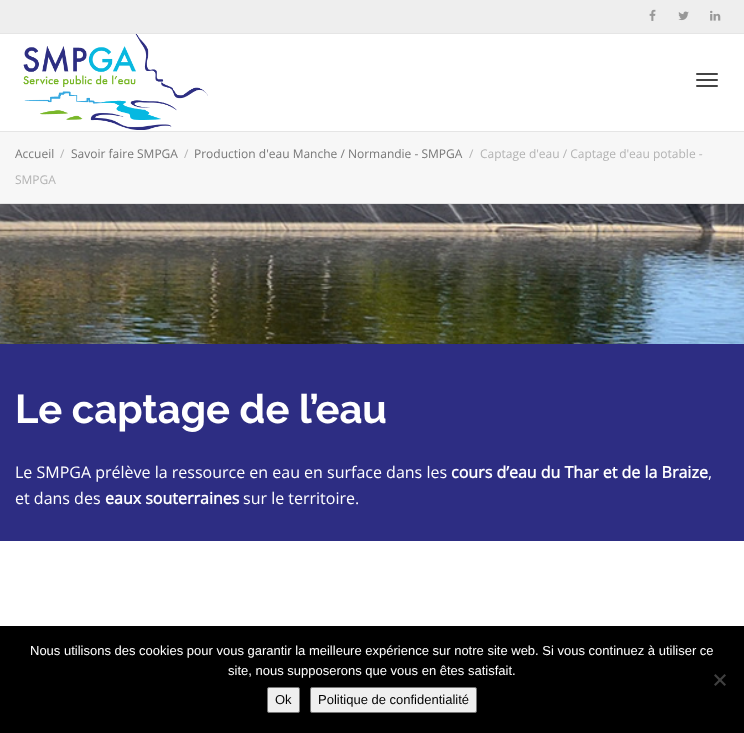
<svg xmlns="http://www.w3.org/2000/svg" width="744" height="733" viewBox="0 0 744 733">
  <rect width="100%" height="100%" fill="#ffffff"/>
  <rect x="0" y="0" width="744" height="33" fill="#eeeeee"/>
  <rect x="0" y="33" width="744" height="1" fill="#e5e5e5"/>
  <image x="649" y="9" width="7" height="12" href="img1.png"/>
  <image x="678" y="11" width="11" height="10" href="img2.png"/>
  <image x="710" y="10" width="11" height="11" href="img3.png"/>
  <rect x="0" y="131" width="744" height="1" fill="#e5e5e5"/>
  <image x="23" y="34" width="185" height="96" href="img4.png"/>
  <rect x="696" y="73" width="22" height="2" rx="1" fill="#444444"/>
  <rect x="696" y="79" width="22" height="2" rx="1" fill="#444444"/>
  <rect x="696" y="85" width="22" height="2" rx="1" fill="#444444"/>
  <rect x="0" y="132" width="744" height="71" fill="#f7f7f7"/>
  <rect x="0" y="203" width="744" height="1" fill="#e5e5e5"/>
  <text x="15" y="158" font-family="Open Sans" font-size="12" fill="#777777">Accueil</text>
  <text x="60" y="158" font-family="Open Sans" font-size="12" fill="#b3b3b3">/</text>
  <text x="71" y="158" font-family="Open Sans" font-size="12" fill="#777777">Savoir faire SMPGA</text>
  <text x="184" y="158" font-family="Open Sans" font-size="12" fill="#b3b3b3">/</text>
  <text x="194" y="158" font-family="Open Sans" font-size="12" fill="#777777">Production d'eau Manche / Normandie - SMPGA</text>
  <text x="469" y="158" font-family="Open Sans" font-size="12" fill="#b3b3b3">/</text>
  <text x="480" y="158" font-family="Open Sans" font-size="12" fill="#b3b3b3">Captage d'eau / Captage d'eau potable -</text>
  <text x="15" y="184" font-family="Open Sans" font-size="12" fill="#b3b3b3">SMPGA</text>
  <image x="0" y="204" width="744" height="140" href="img5.png"/>
  <rect x="0" y="344" width="744" height="197" fill="#2d2d83"/>
  <text x="15" y="423" font-family="Raleway" font-size="40" font-weight="bold" fill="#ffffff">Le captage de l’eau</text>
  <text x="15" y="478" font-family="Open Sans" font-size="16" fill="#ffffff">Le SMPGA prélève la ressource en eau en surface dans les</text>
  <text x="451" y="478" font-family="Open Sans" font-size="16" font-weight="bold" fill="#ffffff">cours d’eau du Thar et de la Braize</text>
  <text x="708" y="478" font-family="Open Sans" font-size="16" fill="#ffffff">,</text>
  <text x="15" y="504" font-family="Open Sans" font-size="16" fill="#ffffff">et dans des</text>
  <text x="105" y="504" font-family="Open Sans" font-size="16" font-weight="bold" fill="#ffffff">eaux souterraines</text>
  <text x="243" y="504" font-family="Open Sans" font-size="16" fill="#ffffff">sur le territoire.</text>
  <rect x="0" y="626" width="744" height="107" fill="#000000"/>
  <text x="30" y="655" font-family="Liberation Sans" font-size="13" fill="#ffffff">Nous utilisons des cookies pour vous garantir la meilleure expérience sur notre site web. Si vous continuez à utiliser ce</text>
  <text x="228" y="675" font-family="Liberation Sans" font-size="13" fill="#ffffff">site, nous supposerons que vous en êtes satisfait.</text>
  <path d="M724.5 674L726 675.5L715.5 686L714 684.5Z" fill="#404040"/>
  <path d="M714 675.5L715.5 674L726 684.5L724.5 686Z" fill="#404040"/>
  <rect x="267.5" y="687.5" width="32" height="25" rx="1.5" fill="#efefef" stroke="#767676"/>
  <text x="275" y="704" font-family="Liberation Sans" font-size="13" fill="#000000">Ok</text>
  <rect x="310.5" y="687.5" width="166" height="25" rx="1.5" fill="#efefef" stroke="#767676"/>
  <text x="318" y="704" font-family="Liberation Sans" font-size="13" fill="#000000">Politique de confidentialité</text>
</svg>
